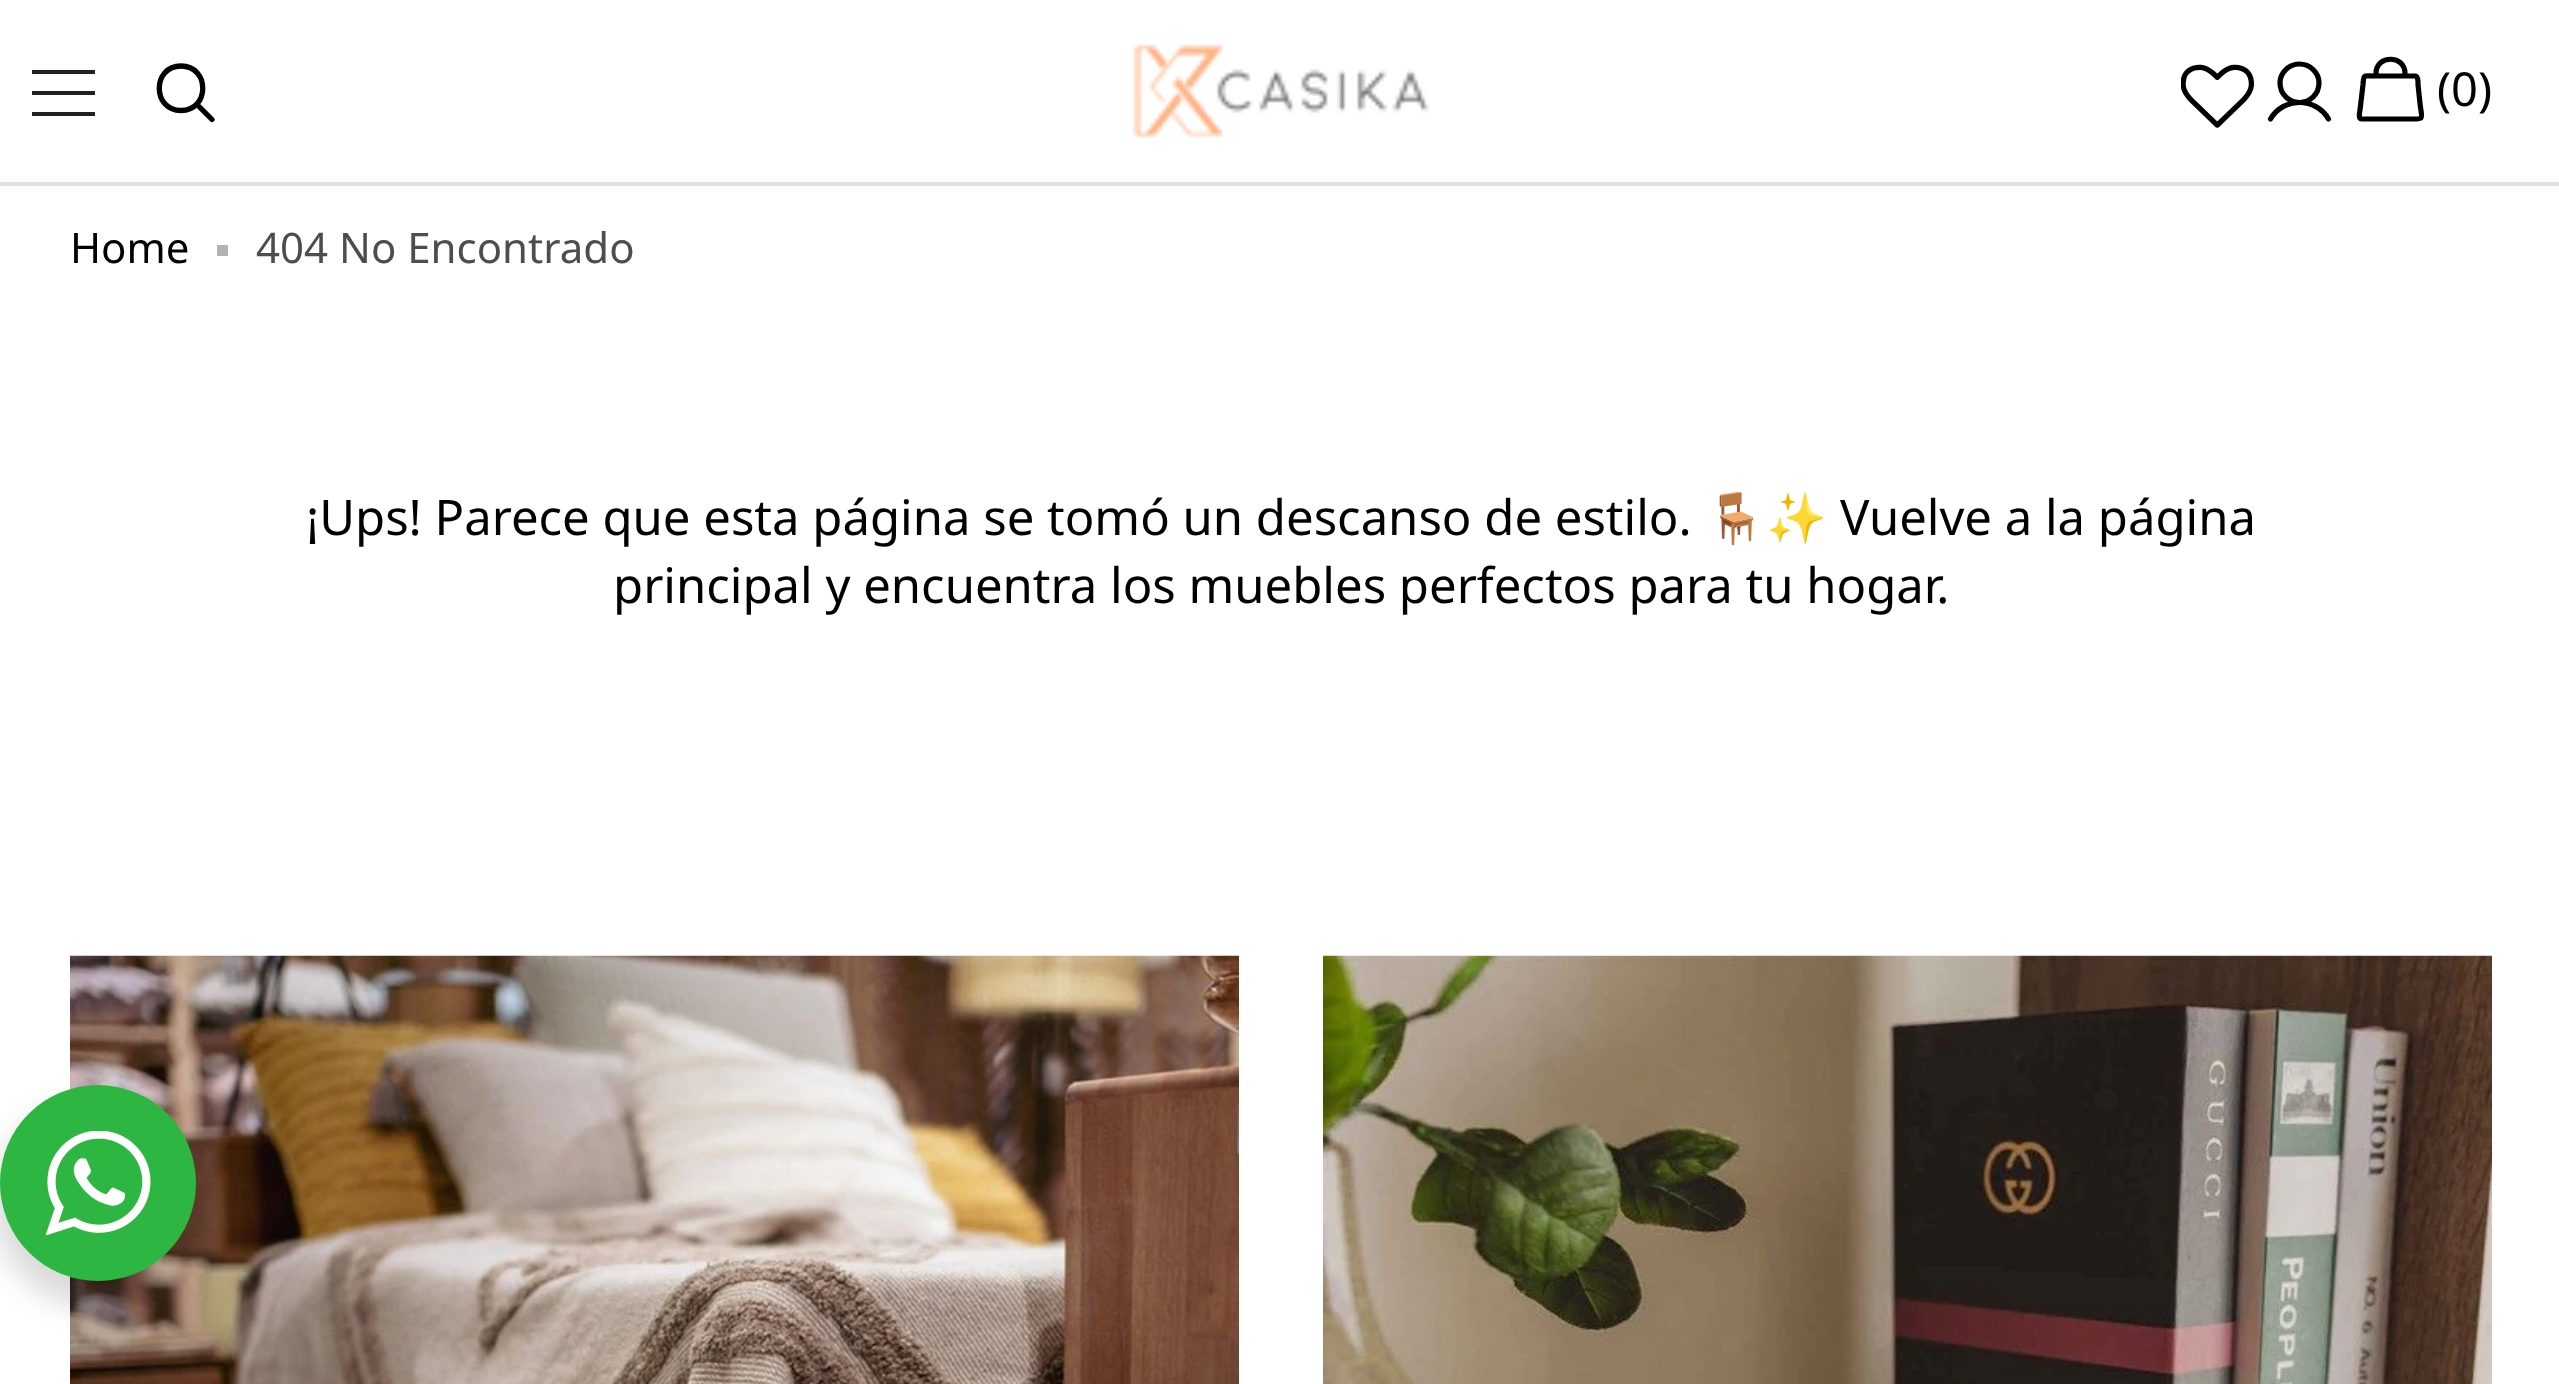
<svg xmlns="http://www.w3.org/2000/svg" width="2559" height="1384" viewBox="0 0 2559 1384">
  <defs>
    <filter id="blur1" x="-50%" y="-200%" width="200%" height="500%"><feGaussianBlur stdDeviation="14"/></filter>
  </defs>
  <rect width="100%" height="100%" fill="#ffffff"/>
  <rect x="32" y="70" width="63" height="4" fill="#202020"/>
  <rect x="32" y="91" width="63" height="4" fill="#202020"/>
  <rect x="32" y="112" width="63" height="4" fill="#202020"/>
  <path d="M181 110.5C210 110.5 210 66 181 66C152 66 152 110.5 181 110.5ZM196.5 104L212 119.5" fill="none" stroke="#000000" stroke-width="5.3" stroke-linecap="round" stroke-linejoin="round"/>
  <image x="1132" y="44" width="298" height="94" href="img1.png"/>
  <image x="2181" y="64" width="73" height="64" href="img2.png"/>
  <path d="M2299.5 102.5C2310 102.5 2319 94 2319 83C2319 72.5 2310 64 2299.5 64C2289 64 2280 72.5 2280 83C2280 94 2289 102.5 2299.5 102.5Z" fill="none" stroke="#000000" stroke-width="5.2"/>
  <path d="M2270.5 119C2283 97 2316 97 2328.5 119" fill="none" stroke="#000000" stroke-width="5.2" stroke-linecap="round" stroke-linejoin="round"/>
  <path d="M2415 76H2374.5C2363 76 2364 74 2363 84.5L2360 110C2360 111 2357.5 119 2362 119H2409.5C2425 119 2422 120.5 2420 103.5L2418 84.5C2418 83 2418.5 76 2415 76Z" fill="none" stroke="#000000" stroke-width="5.2" stroke-linecap="round" stroke-linejoin="round"/>
  <path d="M2376 73.5C2376 54.5 2405 54.5 2405 73.5" fill="none" stroke="#000000" stroke-width="5.2" stroke-linecap="round" stroke-linejoin="round"/>
  <text x="2437" y="106" font-family="Noto Sans" font-size="47" fill="#000000">(0)</text>
  <rect x="0" y="182" width="2559" height="4" fill="#e1e1e1"/>
  <text x="70" y="263" font-family="Noto Sans" font-size="42" fill="#000000">Home</text>
  <rect x="217" y="245" width="11" height="11" fill="#b3b3b3"/>
  <text x="256" y="263" font-family="Noto Sans" font-size="42" fill="#4d4d4d">404 No Encontrado</text>
  <text x="306" y="535" font-family="Noto Sans" font-size="49" fill="#000000">¡Ups! Parece que esta página se tomó un descanso de estilo.</text>
  <text x="1705" y="535" font-family="Noto Color Emoji" font-size="49" fill="#000000">🪑✨</text>
  <text x="1840" y="535" font-family="Noto Sans" font-size="49" fill="#000000">Vuelve a la página</text>
  <text x="613" y="603" font-family="Noto Sans" font-size="49" fill="#000000">principal y encuentra los muebles perfectos para tu hogar.</text>
  <image x="70" y="955" width="1169" height="429" href="img3.png"/>
  <image x="1323" y="955" width="1169" height="429" href="img4.png"/>
  <rect x="-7" y="1099" width="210" height="210" rx="105" fill="#000000" fill-opacity="0.14" filter="url(#blur1)"/>
  <circle cx="98" cy="1183" r="98" fill="#2db742"/>
  <image x="46" y="1131" width="105" height="105" href="img5.png"/>
</svg>
